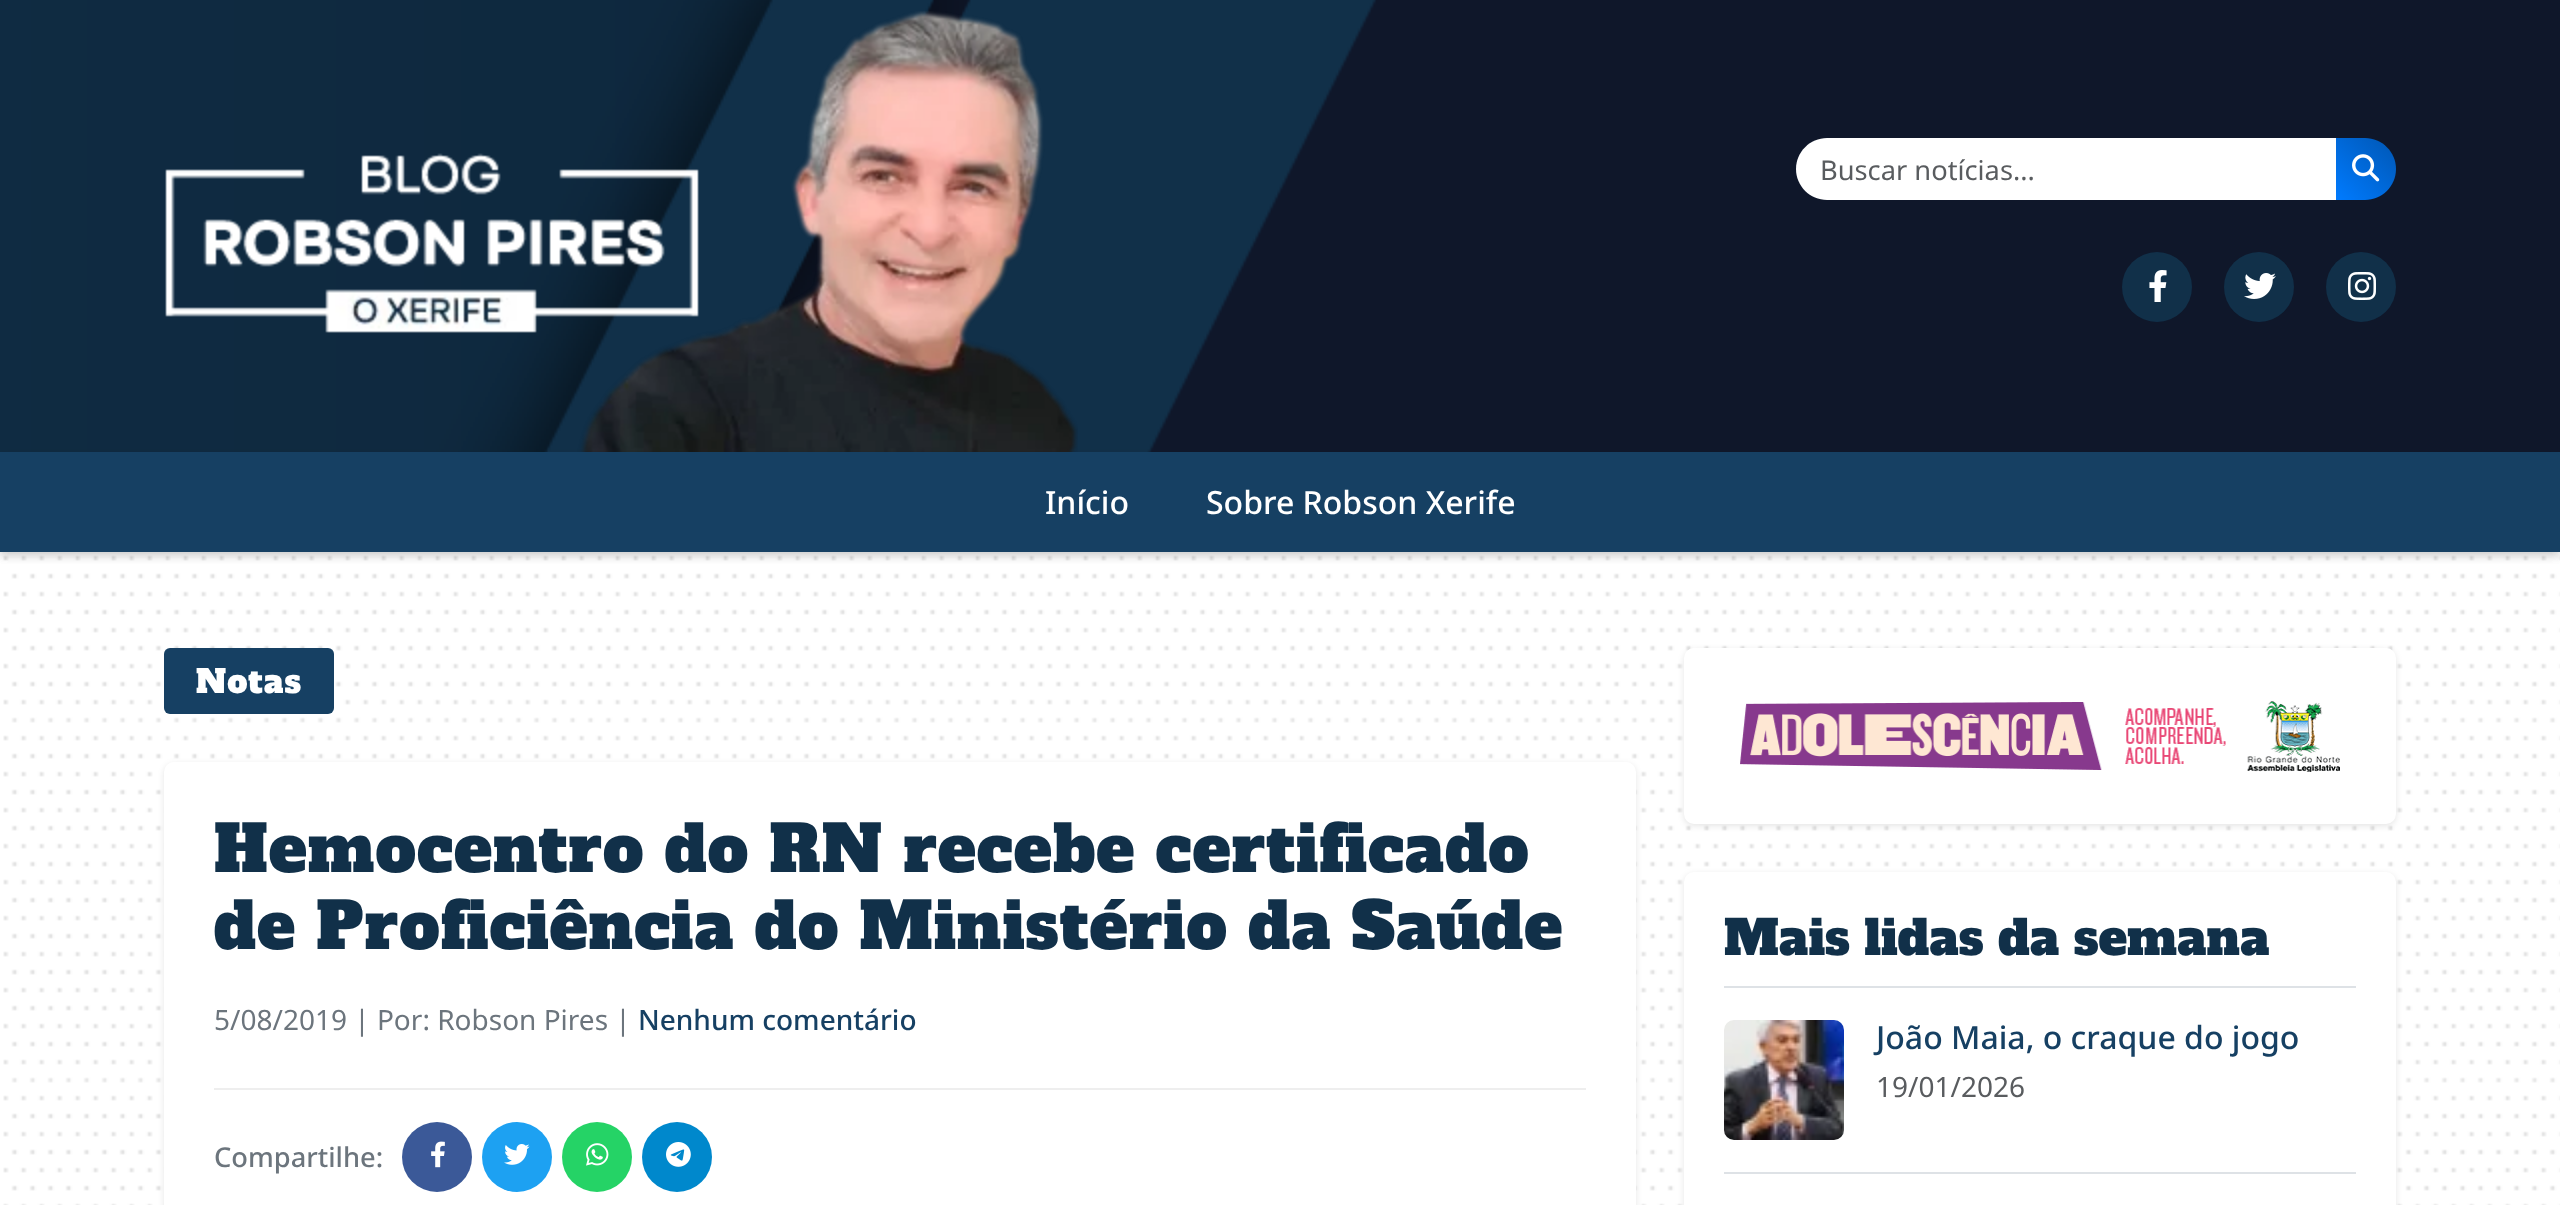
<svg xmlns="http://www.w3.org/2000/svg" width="2560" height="1205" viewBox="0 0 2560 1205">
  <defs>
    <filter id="blur1" x="-50%" y="-200%" width="200%" height="500%"><feGaussianBlur stdDeviation="4"/></filter>
    <linearGradient id="g1" gradientUnits="userSpaceOnUse" x1="2336" y1="200" x2="2397" y2="139"><stop offset="0" stop-color="#007bff"/><stop offset="1" stop-color="#0056b3"/></linearGradient>
    <filter id="blur2" x="-50%" y="-200%" width="200%" height="500%"><feGaussianBlur stdDeviation="3"/></filter>
  </defs>
  <rect width="100%" height="100%" fill="#ffffff"/>
  <image x="3" y="552" width="2557" height="653" href="img1.png"/>
  <rect x="0" y="4" width="2560" height="552" fill="#000000" fill-opacity="0.1" filter="url(#blur1)"/>
  <image x="0" y="0" width="2560" height="452" href="img2.png"/>
  <image x="165" y="11" width="913" height="441" href="img3.png"/>
  <path d="M1827 138H2338V200H1827C1810 200 1796 186 1796 169C1796 152 1810 138 1827 138Z" fill="#ffffff"/>
  <text x="1820" y="180" font-family="Noto Sans" font-size="27.25" fill="#595c5f">Buscar notícias...</text>
  <path d="M2336 138H2365C2382 138 2396 152 2396 169C2396 186 2382 200 2365 200H2336Z" fill="url(#g1)"/>
  <image x="2352" y="154" width="28" height="28" href="img4.png"/>
  <circle cx="2157" cy="287" r="35" fill="#113049"/>
  <image x="2149" y="270" width="18" height="32" href="img5.png"/>
  <circle cx="2259" cy="287" r="35" fill="#113049"/>
  <image x="2244" y="273" width="32" height="26" href="img6.png"/>
  <circle cx="2361" cy="287" r="35" fill="#113049"/>
  <image x="2348" y="272" width="28" height="28" href="img7.png"/>
  <rect x="0" y="456" width="2560" height="100" fill="#000000" fill-opacity="0.1" filter="url(#blur1)"/>
  <rect x="0" y="452" width="2560" height="100" fill="#164063"/>
  <text x="1045" y="514" font-family="Noto Sans" font-size="32" font-weight="500" fill="#ffffff">Início</text>
  <text x="1206" y="514" font-family="Noto Sans" font-size="32" font-weight="500" fill="#ffffff">Sobre Robson Xerife</text>
  <rect x="164" y="648" width="170" height="66" rx="6" fill="#164063"/>
  <text x="196" y="693" font-family="Alfa Slab One" font-size="32" letter-spacing="1" fill="#ffffff">Notas</text>
  <rect x="164" y="764" width="1472" height="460" rx="10" fill="#000000" fill-opacity="0.1" filter="url(#blur2)"/>
  <rect x="164" y="762" width="1472" height="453" rx="10" fill="#ffffff"/>
  <text x="214" y="872" font-family="Alfa Slab One" font-size="64" letter-spacing="1" fill="#113049">Hemocentro do RN recebe certificado</text>
  <text x="214" y="949" font-family="Alfa Slab One" font-size="64" letter-spacing="1" fill="#113049">de Proficiência do Ministério da Saúde</text>
  <text x="214" y="1030" font-family="Noto Sans" font-size="28" fill="#6c757d">5/08/2019 | Por: Robson Pires |</text>
  <text x="638" y="1030" font-family="Noto Sans" font-size="28" font-weight="500" fill="#164063">Nenhum comentário</text>
  <rect x="214" y="1088" width="1372" height="2" fill="#eeeeee"/>
  <text x="214" y="1167" font-family="Noto Sans" font-size="27.25" font-weight="500" fill="#6c757d">Compartilhe:</text>
  <circle cx="437" cy="1157" r="35" fill="#3b5998"/>
  <image x="431" y="1141" width="14" height="27" href="img8.png"/>
  <circle cx="517" cy="1157" r="35" fill="#1da1f2"/>
  <image x="504" y="1144" width="26" height="21" href="img9.png"/>
  <circle cx="597" cy="1157" r="35" fill="#25d366"/>
  <image x="586" y="1143" width="23" height="23" href="img10.png"/>
  <circle cx="677" cy="1157" r="35" fill="#0088cc"/>
  <image x="666" y="1142" width="25" height="25" href="img11.png"/>
  <rect x="1684" y="650" width="712" height="176" rx="10" fill="#000000" fill-opacity="0.1" filter="url(#blur2)"/>
  <rect x="1684" y="648" width="712" height="176" rx="10" fill="#ffffff"/>
  <image x="1740" y="701" width="600" height="71" href="img12.png"/>
  <rect x="1684" y="874" width="712" height="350" rx="10" fill="#000000" fill-opacity="0.1" filter="url(#blur2)"/>
  <rect x="1684" y="872" width="712" height="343" rx="10" fill="#ffffff"/>
  <rect x="1724" y="986" width="632" height="2" fill="#dee2e6"/>
  <text x="1724" y="955" font-family="Alfa Slab One" font-size="48" fill="#113049">Mais lidas da semana</text>
  <rect x="1724" y="1172" width="632" height="2" fill="#dee2e6"/>
  <image x="1724" y="1020" width="120" height="120" href="img13.png"/>
  <text x="1876" y="1049" font-family="Noto Sans" font-size="32" font-weight="500" fill="#164063">João Maia, o craque do jogo</text>
  <text x="1876" y="1097" font-family="Noto Sans" font-size="28" fill="#595c5f">19/01/2026</text>
</svg>
